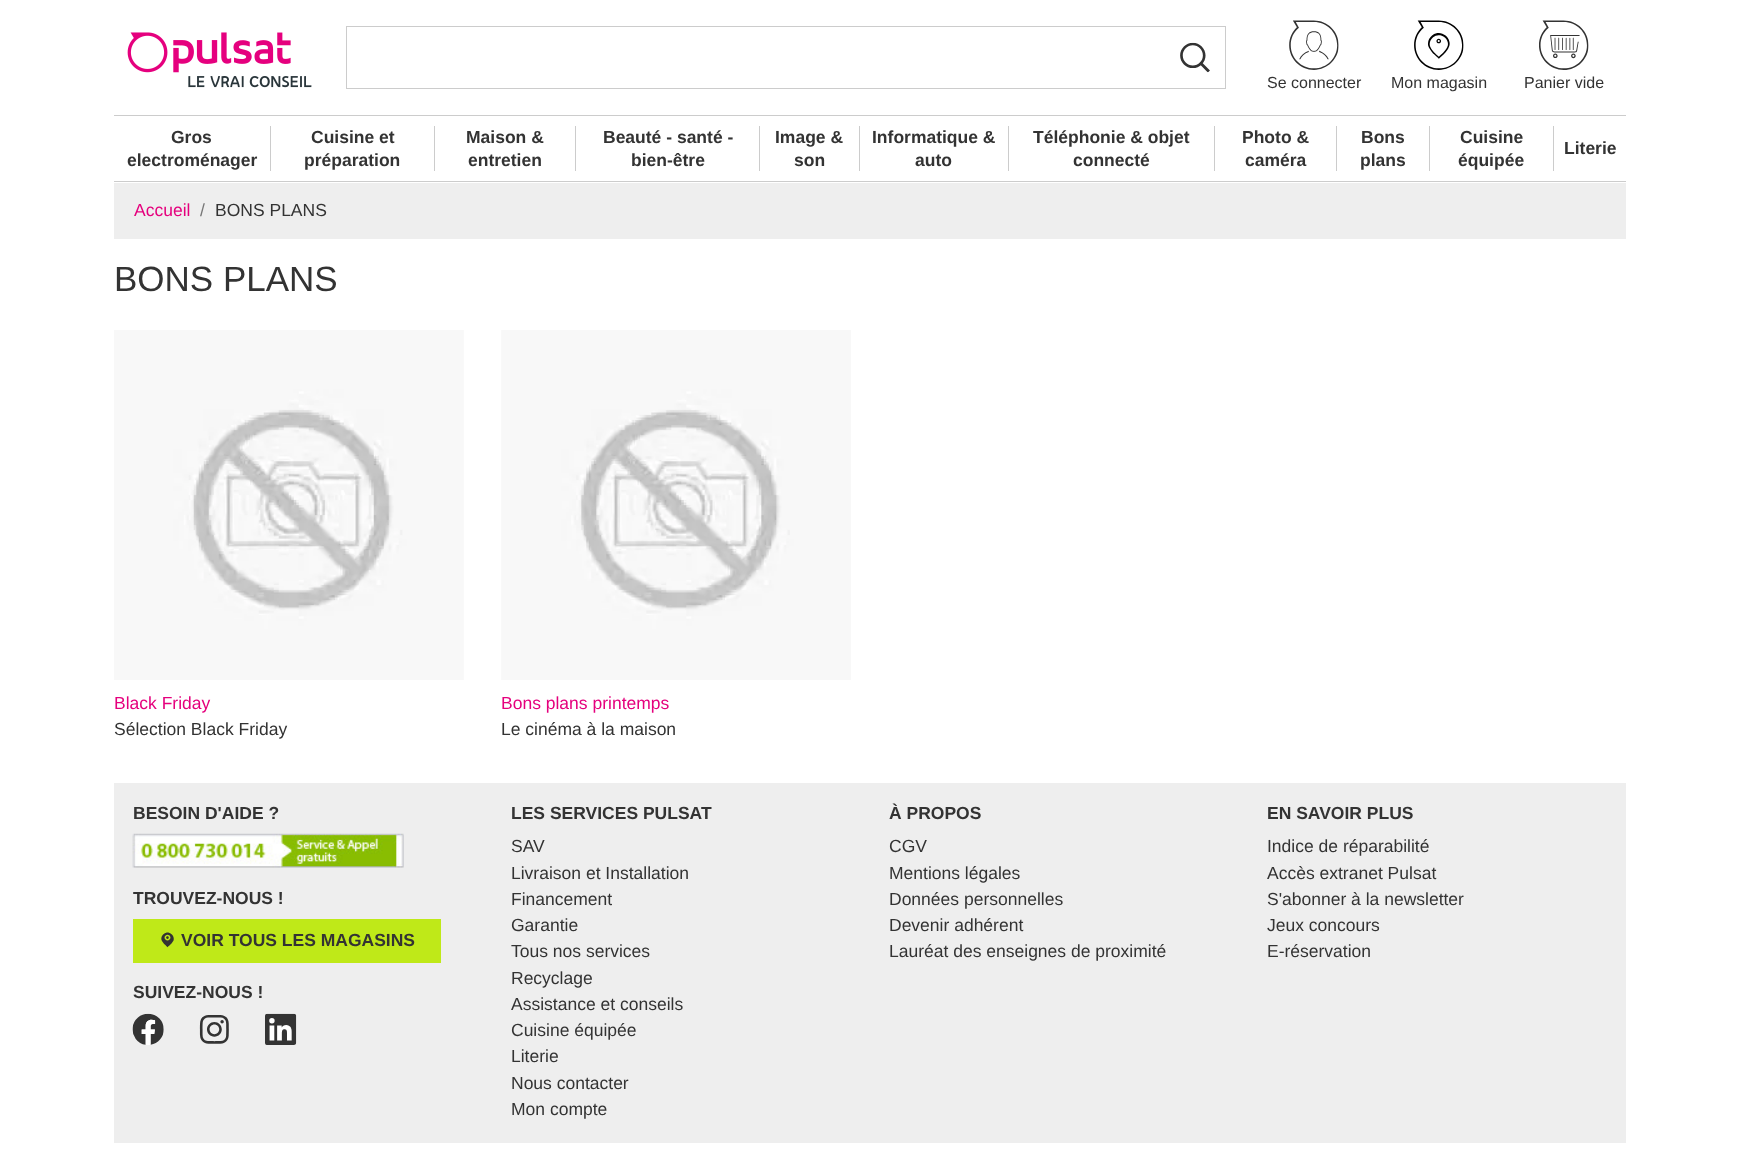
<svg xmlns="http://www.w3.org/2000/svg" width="1739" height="1166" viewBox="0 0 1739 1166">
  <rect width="100%" height="100%" fill="#ffffff"/>
  <image x="127" y="32" width="185" height="56" href="img1.png"/>
  <rect x="346.5" y="26.5" width="879" height="62" fill="none" stroke="#cccccc"/>
  <image x="1180" y="42" width="30" height="31" href="img2.png"/>
  <image x="1289" y="20" width="50" height="50" href="img3.png"/>
  <text x="1267" y="88" font-family="Liberation Sans" font-size="16" fill="#333333">Se connecter</text>
  <image x="1414" y="20" width="50" height="50" href="img4.png"/>
  <text x="1391" y="88" font-family="Liberation Sans" font-size="16" fill="#333333">Mon magasin</text>
  <image x="1539" y="20" width="50" height="50" href="img5.png"/>
  <text x="1524" y="88" font-family="Liberation Sans" font-size="16" fill="#333333">Panier vide</text>
  <rect x="114" y="115" width="1512" height="1" fill="#cccccc"/>
  <rect x="114" y="181" width="1512" height="1" fill="#cccccc"/>
  <text x="171" y="143" font-family="Liberation Sans" font-size="17.5" font-weight="bold" fill="#333333">Gros</text>
  <text x="127" y="166" font-family="Liberation Sans" font-size="17.5" font-weight="bold" fill="#333333">electroménager</text>
  <rect x="270" y="126" width="1" height="45" fill="#cccccc"/>
  <text x="311" y="143" font-family="Liberation Sans" font-size="17.5" font-weight="bold" fill="#333333">Cuisine et</text>
  <text x="304" y="166" font-family="Liberation Sans" font-size="17.5" font-weight="bold" fill="#333333">préparation</text>
  <rect x="434" y="126" width="1" height="45" fill="#cccccc"/>
  <text x="466" y="143" font-family="Liberation Sans" font-size="17.5" font-weight="bold" fill="#333333">Maison &amp;</text>
  <text x="468" y="166" font-family="Liberation Sans" font-size="17.5" font-weight="bold" fill="#333333">entretien</text>
  <rect x="575" y="126" width="1" height="45" fill="#cccccc"/>
  <text x="603" y="143" font-family="Liberation Sans" font-size="17.5" font-weight="bold" fill="#333333">Beauté - santé -</text>
  <text x="631" y="166" font-family="Liberation Sans" font-size="17.5" font-weight="bold" fill="#333333">bien-être</text>
  <rect x="759" y="126" width="1" height="45" fill="#cccccc"/>
  <text x="775" y="143" font-family="Liberation Sans" font-size="17.5" font-weight="bold" fill="#333333">Image &amp;</text>
  <text x="794" y="166" font-family="Liberation Sans" font-size="17.5" font-weight="bold" fill="#333333">son</text>
  <rect x="859" y="126" width="1" height="45" fill="#cccccc"/>
  <text x="872" y="143" font-family="Liberation Sans" font-size="17.5" font-weight="bold" fill="#333333">Informatique &amp;</text>
  <text x="915" y="166" font-family="Liberation Sans" font-size="17.5" font-weight="bold" fill="#333333">auto</text>
  <rect x="1008" y="126" width="1" height="45" fill="#cccccc"/>
  <text x="1033" y="143" font-family="Liberation Sans" font-size="17.5" font-weight="bold" fill="#333333">Téléphonie &amp; objet</text>
  <text x="1073" y="166" font-family="Liberation Sans" font-size="17.5" font-weight="bold" fill="#333333">connecté</text>
  <rect x="1214" y="126" width="1" height="45" fill="#cccccc"/>
  <text x="1242" y="143" font-family="Liberation Sans" font-size="17.5" font-weight="bold" fill="#333333">Photo &amp;</text>
  <text x="1245" y="166" font-family="Liberation Sans" font-size="17.5" font-weight="bold" fill="#333333">caméra</text>
  <rect x="1336" y="126" width="1" height="45" fill="#cccccc"/>
  <text x="1361" y="143" font-family="Liberation Sans" font-size="17.5" font-weight="bold" fill="#333333">Bons</text>
  <text x="1360" y="166" font-family="Liberation Sans" font-size="17.5" font-weight="bold" fill="#333333">plans</text>
  <rect x="1429" y="126" width="1" height="45" fill="#cccccc"/>
  <text x="1460" y="143" font-family="Liberation Sans" font-size="17.5" font-weight="bold" fill="#333333">Cuisine</text>
  <text x="1458" y="166" font-family="Liberation Sans" font-size="17.5" font-weight="bold" fill="#333333">équipée</text>
  <rect x="1553" y="126" width="1" height="45" fill="#cccccc"/>
  <text x="1564" y="154" font-family="Liberation Sans" font-size="17.5" font-weight="bold" fill="#333333">Literie</text>
  <rect x="114" y="183" width="1512" height="56" fill="#eeeeee"/>
  <text x="134" y="216" font-family="Liberation Sans" font-size="17.5" fill="#e5007d">Accueil</text>
  <text x="200" y="216" font-family="Liberation Sans" font-size="17.5" fill="#777777">/</text>
  <text x="215" y="216" font-family="Liberation Sans" font-size="17.5" fill="#333333">BONS PLANS</text>
  <text x="114" y="291" font-family="Liberation Sans" font-size="35" fill="#333333">BONS PLANS</text>
  <image x="114" y="330" width="350" height="350" href="img6.png"/>
  <text x="114" y="709" font-family="Liberation Sans" font-size="17.5" fill="#e5007d">Black Friday</text>
  <text x="114" y="735" font-family="Liberation Sans" font-size="17.5" fill="#333333">Sélection Black Friday</text>
  <image x="501" y="330" width="350" height="350" href="img7.png"/>
  <text x="501" y="709" font-family="Liberation Sans" font-size="17.5" fill="#e5007d">Bons plans printemps</text>
  <text x="501" y="735" font-family="Liberation Sans" font-size="17.5" fill="#333333">Le cinéma à la maison</text>
  <rect x="114" y="783" width="1512" height="360" fill="#eeeeee"/>
  <text x="133" y="819" font-family="Liberation Sans" font-size="17.5" font-weight="bold" fill="#333333">BESOIN D'AIDE ?</text>
  <image x="132" y="833" width="272" height="35" href="img8.png"/>
  <text x="133" y="904" font-family="Liberation Sans" font-size="17.5" font-weight="bold" fill="#333333">TROUVEZ-NOUS !</text>
  <rect x="133" y="919" width="308" height="44" fill="#bfe918"/>
  <image x="161" y="932" width="13" height="16" href="img9.png"/>
  <text x="181" y="946" font-family="Liberation Sans" font-size="17.5" font-weight="bold" fill="#333333">VOIR TOUS LES MAGASINS</text>
  <text x="133" y="998" font-family="Liberation Sans" font-size="17.5" font-weight="bold" fill="#333333">SUIVEZ-NOUS !</text>
  <image x="132" y="1013" width="32" height="32" href="img10.png"/>
  <image x="199" y="1015" width="30" height="29" href="img11.png"/>
  <image x="265" y="1013" width="32" height="32" href="img12.png"/>
  <text x="511" y="819" font-family="Liberation Sans" font-size="17.5" font-weight="bold" fill="#333333">LES SERVICES PULSAT</text>
  <text x="511" y="852" font-family="Liberation Sans" font-size="17.5" fill="#333333">SAV</text>
  <text x="511" y="879" font-family="Liberation Sans" font-size="17.5" fill="#333333">Livraison et Installation</text>
  <text x="511" y="905" font-family="Liberation Sans" font-size="17.5" fill="#333333">Financement</text>
  <text x="511" y="931" font-family="Liberation Sans" font-size="17.5" fill="#333333">Garantie</text>
  <text x="511" y="957" font-family="Liberation Sans" font-size="17.5" fill="#333333">Tous nos services</text>
  <text x="511" y="984" font-family="Liberation Sans" font-size="17.5" fill="#333333">Recyclage</text>
  <text x="511" y="1010" font-family="Liberation Sans" font-size="17.5" fill="#333333">Assistance et conseils</text>
  <text x="511" y="1036" font-family="Liberation Sans" font-size="17.5" fill="#333333">Cuisine équipée</text>
  <text x="511" y="1062" font-family="Liberation Sans" font-size="17.5" fill="#333333">Literie</text>
  <text x="511" y="1089" font-family="Liberation Sans" font-size="17.5" fill="#333333">Nous contacter</text>
  <text x="511" y="1115" font-family="Liberation Sans" font-size="17.5" fill="#333333">Mon compte</text>
  <text x="889" y="819" font-family="Liberation Sans" font-size="17.5" font-weight="bold" fill="#333333">À PROPOS</text>
  <text x="889" y="852" font-family="Liberation Sans" font-size="17.5" fill="#333333">CGV</text>
  <text x="889" y="879" font-family="Liberation Sans" font-size="17.5" fill="#333333">Mentions légales</text>
  <text x="889" y="905" font-family="Liberation Sans" font-size="17.5" fill="#333333">Données personnelles</text>
  <text x="889" y="931" font-family="Liberation Sans" font-size="17.5" fill="#333333">Devenir adhérent</text>
  <text x="889" y="957" font-family="Liberation Sans" font-size="17.5" fill="#333333">Lauréat des enseignes de proximité</text>
  <text x="1267" y="819" font-family="Liberation Sans" font-size="17.5" font-weight="bold" fill="#333333">EN SAVOIR PLUS</text>
  <text x="1267" y="852" font-family="Liberation Sans" font-size="17.5" fill="#333333">Indice de réparabilité</text>
  <text x="1267" y="879" font-family="Liberation Sans" font-size="17.5" fill="#333333">Accès extranet Pulsat</text>
  <text x="1267" y="905" font-family="Liberation Sans" font-size="17.5" fill="#333333">S'abonner à la newsletter</text>
  <text x="1267" y="931" font-family="Liberation Sans" font-size="17.5" fill="#333333">Jeux concours</text>
  <text x="1267" y="957" font-family="Liberation Sans" font-size="17.5" fill="#333333">E-réservation</text>
</svg>
